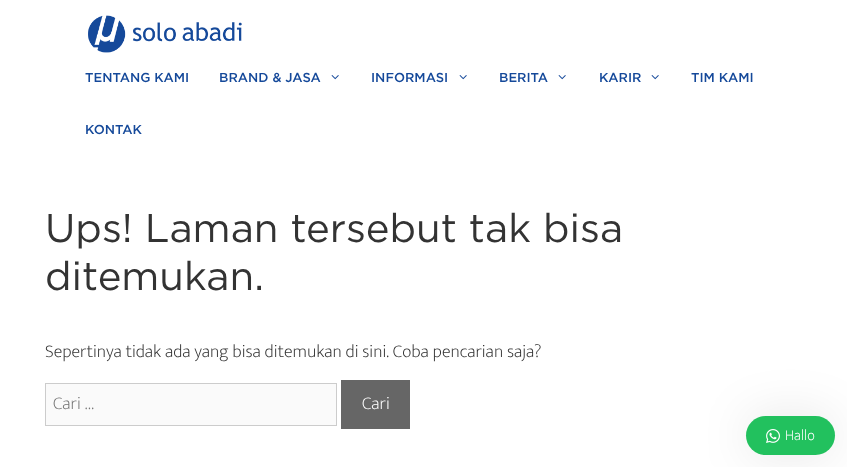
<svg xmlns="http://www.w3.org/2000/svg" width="847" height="467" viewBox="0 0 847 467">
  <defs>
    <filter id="blur1" x="-50%" y="-200%" width="200%" height="500%"><feGaussianBlur stdDeviation="25"/></filter>
  </defs>
  <rect width="100%" height="100%" fill="#ffffff"/>
  <image x="88" y="15" width="154" height="38" href="img1.png"/>
  <text x="85" y="82" font-family="Gotham" font-size="13" font-weight="500" fill="#15499a">TENTANG KAMI</text>
  <text x="219" y="82" font-family="Gotham" font-size="13" font-weight="500" fill="#15499a">BRAND &amp; JASA</text>
  <image x="331" y="75" width="8" height="5" href="img2.png"/>
  <text x="371" y="82" font-family="Gotham" font-size="13" font-weight="500" fill="#15499a">INFORMASI</text>
  <image x="459" y="75" width="8" height="5" href="img2.png"/>
  <text x="499" y="82" font-family="Gotham" font-size="13" font-weight="500" fill="#15499a">BERITA</text>
  <image x="558" y="75" width="8" height="5" href="img2.png"/>
  <text x="599" y="82" font-family="Gotham" font-size="13" font-weight="500" fill="#15499a">KARIR</text>
  <image x="651" y="75" width="8" height="5" href="img2.png"/>
  <text x="691" y="82" font-family="Gotham" font-size="13" font-weight="500" fill="#15499a">TIM KAMI</text>
  <text x="85" y="134" font-family="Gotham" font-size="13" font-weight="500" fill="#15499a">KONTAK</text>
  <text x="45" y="242" font-family="Gotham" font-size="40" fill="#333333">Ups! Laman tersebut tak bisa</text>
  <text x="45" y="290" font-family="Gotham" font-size="40" fill="#333333">ditemukan.</text>
  <text x="45" y="357" font-family="Ek Mukta" font-size="18" font-weight="200" fill="#333333">Sepertinya tidak ada yang bisa ditemukan di sini. Coba pencarian saja?</text>
  <rect x="45.5" y="383.5" width="291" height="42" fill="#fafafa" stroke="#cccccc"/>
  <text x="53" y="409" font-family="Ek Mukta" font-size="18" font-weight="200" fill="#757575">Cari …</text>
  <rect x="341" y="380" width="69" height="49" fill="#666666"/>
  <text x="362" y="409" font-family="Ek Mukta" font-size="18" font-weight="200" fill="#ffffff">Cari</text>
  <rect x="746" y="416" width="89" height="39" rx="19.5" fill="#000000" fill-opacity="0.1" filter="url(#blur1)"/>
  <rect x="746" y="416" width="89" height="39" rx="19.5" fill="#22c15e"/>
  <image x="766" y="429" width="14" height="14" href="img3.png"/>
  <text x="785" y="440" font-family="Ek Mukta" font-size="15" font-weight="200" fill="#ffffff">Hallo</text>
</svg>
